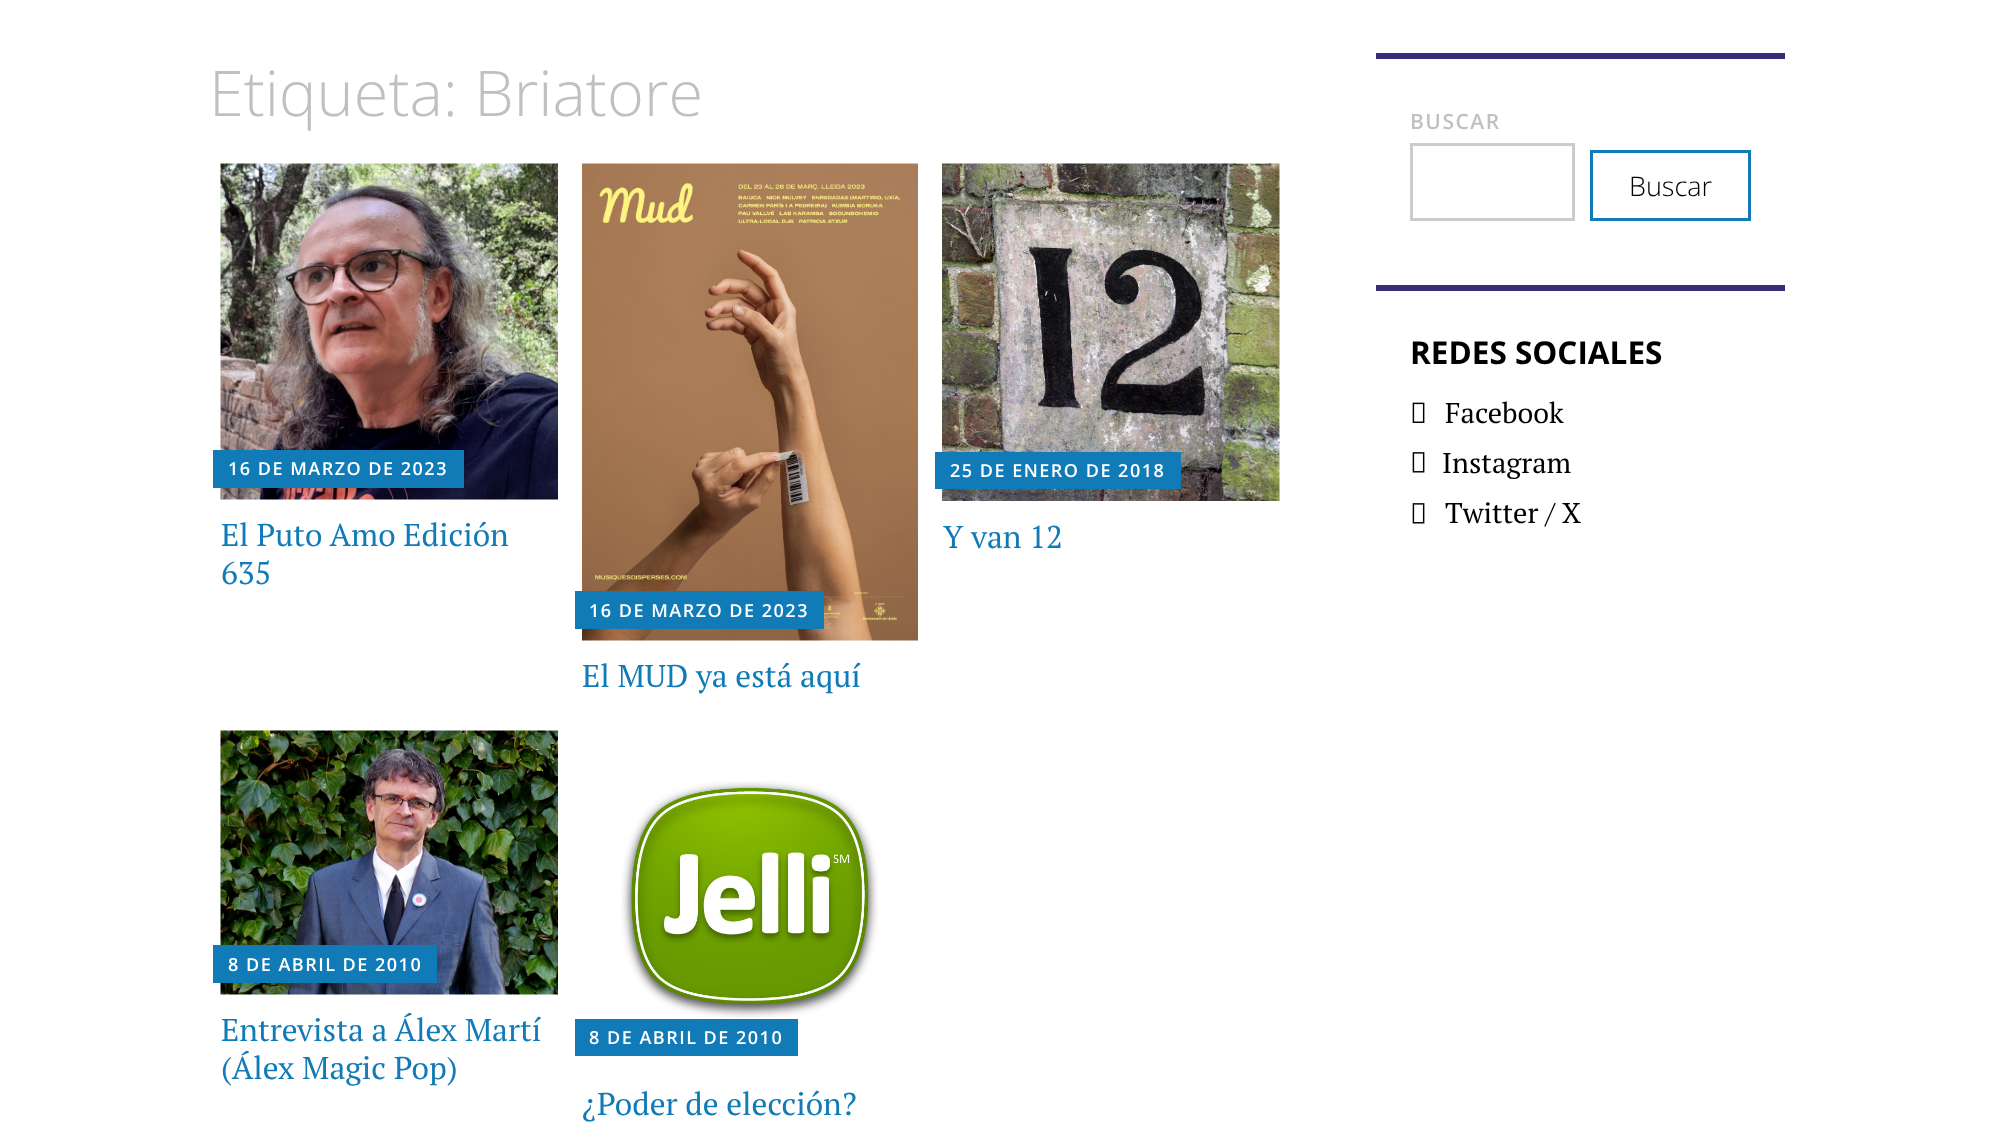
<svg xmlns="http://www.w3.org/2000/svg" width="2005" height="1138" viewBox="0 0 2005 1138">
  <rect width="100%" height="100%" fill="#ffffff"/>
  <text x="209" y="116" font-family="Open Sans" font-size="63" font-weight="300" fill="#c0c0c0">Etiqueta: Briatore</text>
  <image x="220" y="163" width="338" height="337" href="img1.png"/>
  <rect x="213" y="450" width="251" height="38" fill="#117bb8"/>
  <text x="228" y="475" font-family="Open Sans" font-size="18" font-weight="600" letter-spacing="1.5" fill="#ffffff">16 DE MARZO DE 2023</text>
  <text x="221" y="546" font-family="PT Serif" font-size="31.5" fill="#117bb8">El Puto Amo Edición</text>
  <text x="221" y="584" font-family="PT Serif" font-size="31.5" fill="#117bb8">635</text>
  <image x="942" y="163" width="338" height="338" href="img2.png"/>
  <rect x="935" y="452" width="246" height="37" fill="#117bb8"/>
  <text x="950" y="477" font-family="Open Sans" font-size="18" font-weight="600" letter-spacing="1.5" fill="#ffffff">25 DE ENERO DE 2018</text>
  <text x="943" y="548" font-family="PT Serif" font-size="31.5" fill="#117bb8">Y van 12</text>
  <image x="582" y="163" width="336" height="478" href="img3.png"/>
  <rect x="575" y="591" width="249" height="38" fill="#117bb8"/>
  <text x="589" y="617" font-family="Open Sans" font-size="18" font-weight="600" letter-spacing="1.5" fill="#ffffff">16 DE MARZO DE 2023</text>
  <text x="582" y="687" font-family="PT Serif" font-size="31.5" fill="#117bb8">El MUD ya está aquí</text>
  <image x="220" y="730" width="338" height="265" href="img4.png"/>
  <rect x="213" y="945" width="224" height="38" fill="#117bb8"/>
  <text x="228" y="971" font-family="Open Sans" font-size="18" font-weight="600" letter-spacing="1.5" fill="#ffffff">8 DE ABRIL DE 2010</text>
  <text x="221" y="1041" font-family="PT Serif" font-size="31.5" fill="#117bb8">Entrevista a Álex Martí</text>
  <text x="221" y="1079" font-family="PT Serif" font-size="31.5" fill="#117bb8">(Álex Magic Pop)</text>
  <image x="621" y="781" width="257" height="237" href="img5.png"/>
  <rect x="575" y="1019" width="223" height="37" fill="#117bb8"/>
  <text x="589" y="1044" font-family="Open Sans" font-size="18" font-weight="600" letter-spacing="1.5" fill="#ffffff">8 DE ABRIL DE 2010</text>
  <text x="582" y="1115" font-family="PT Serif" font-size="31.5" fill="#117bb8">¿Poder de elección?</text>
  <rect x="1376" y="53" width="409" height="6" fill="#362e77"/>
  <text x="1410" y="129" font-family="Open Sans" font-size="21" font-weight="600" letter-spacing="1.5" fill="#c0c0c0">BUSCAR</text>
  <rect x="1411.5" y="144.5" width="162" height="75" fill="none" stroke="#cccccc" stroke-width="3"/>
  <rect x="1591.5" y="151.5" width="158" height="68" fill="none" stroke="#117bb8" stroke-width="3"/>
  <text x="1629" y="196" font-family="Open Sans" font-size="27" font-weight="300" fill="#000000">Buscar</text>
  <rect x="1376" y="285" width="409" height="6" fill="#362e77"/>
  <text x="1410" y="364" font-family="Open Sans" font-size="31.5" font-weight="bold" fill="#000000">REDES SOCIALES</text>
  <image x="1412" y="402" width="13" height="21" href="img6.png"/>
  <text x="1445" y="423" font-family="PT Serif" font-size="28.5" fill="#000000">Facebook</text>
  <image x="1412" y="452" width="13" height="21" href="img7.png"/>
  <text x="1442" y="473" font-family="PT Serif" font-size="28.5" fill="#000000">Instagram</text>
  <image x="1412" y="503" width="13" height="21" href="img7.png"/>
  <text x="1445" y="523" font-family="PT Serif" font-size="28.5" fill="#000000">Twitter / X</text>
</svg>
